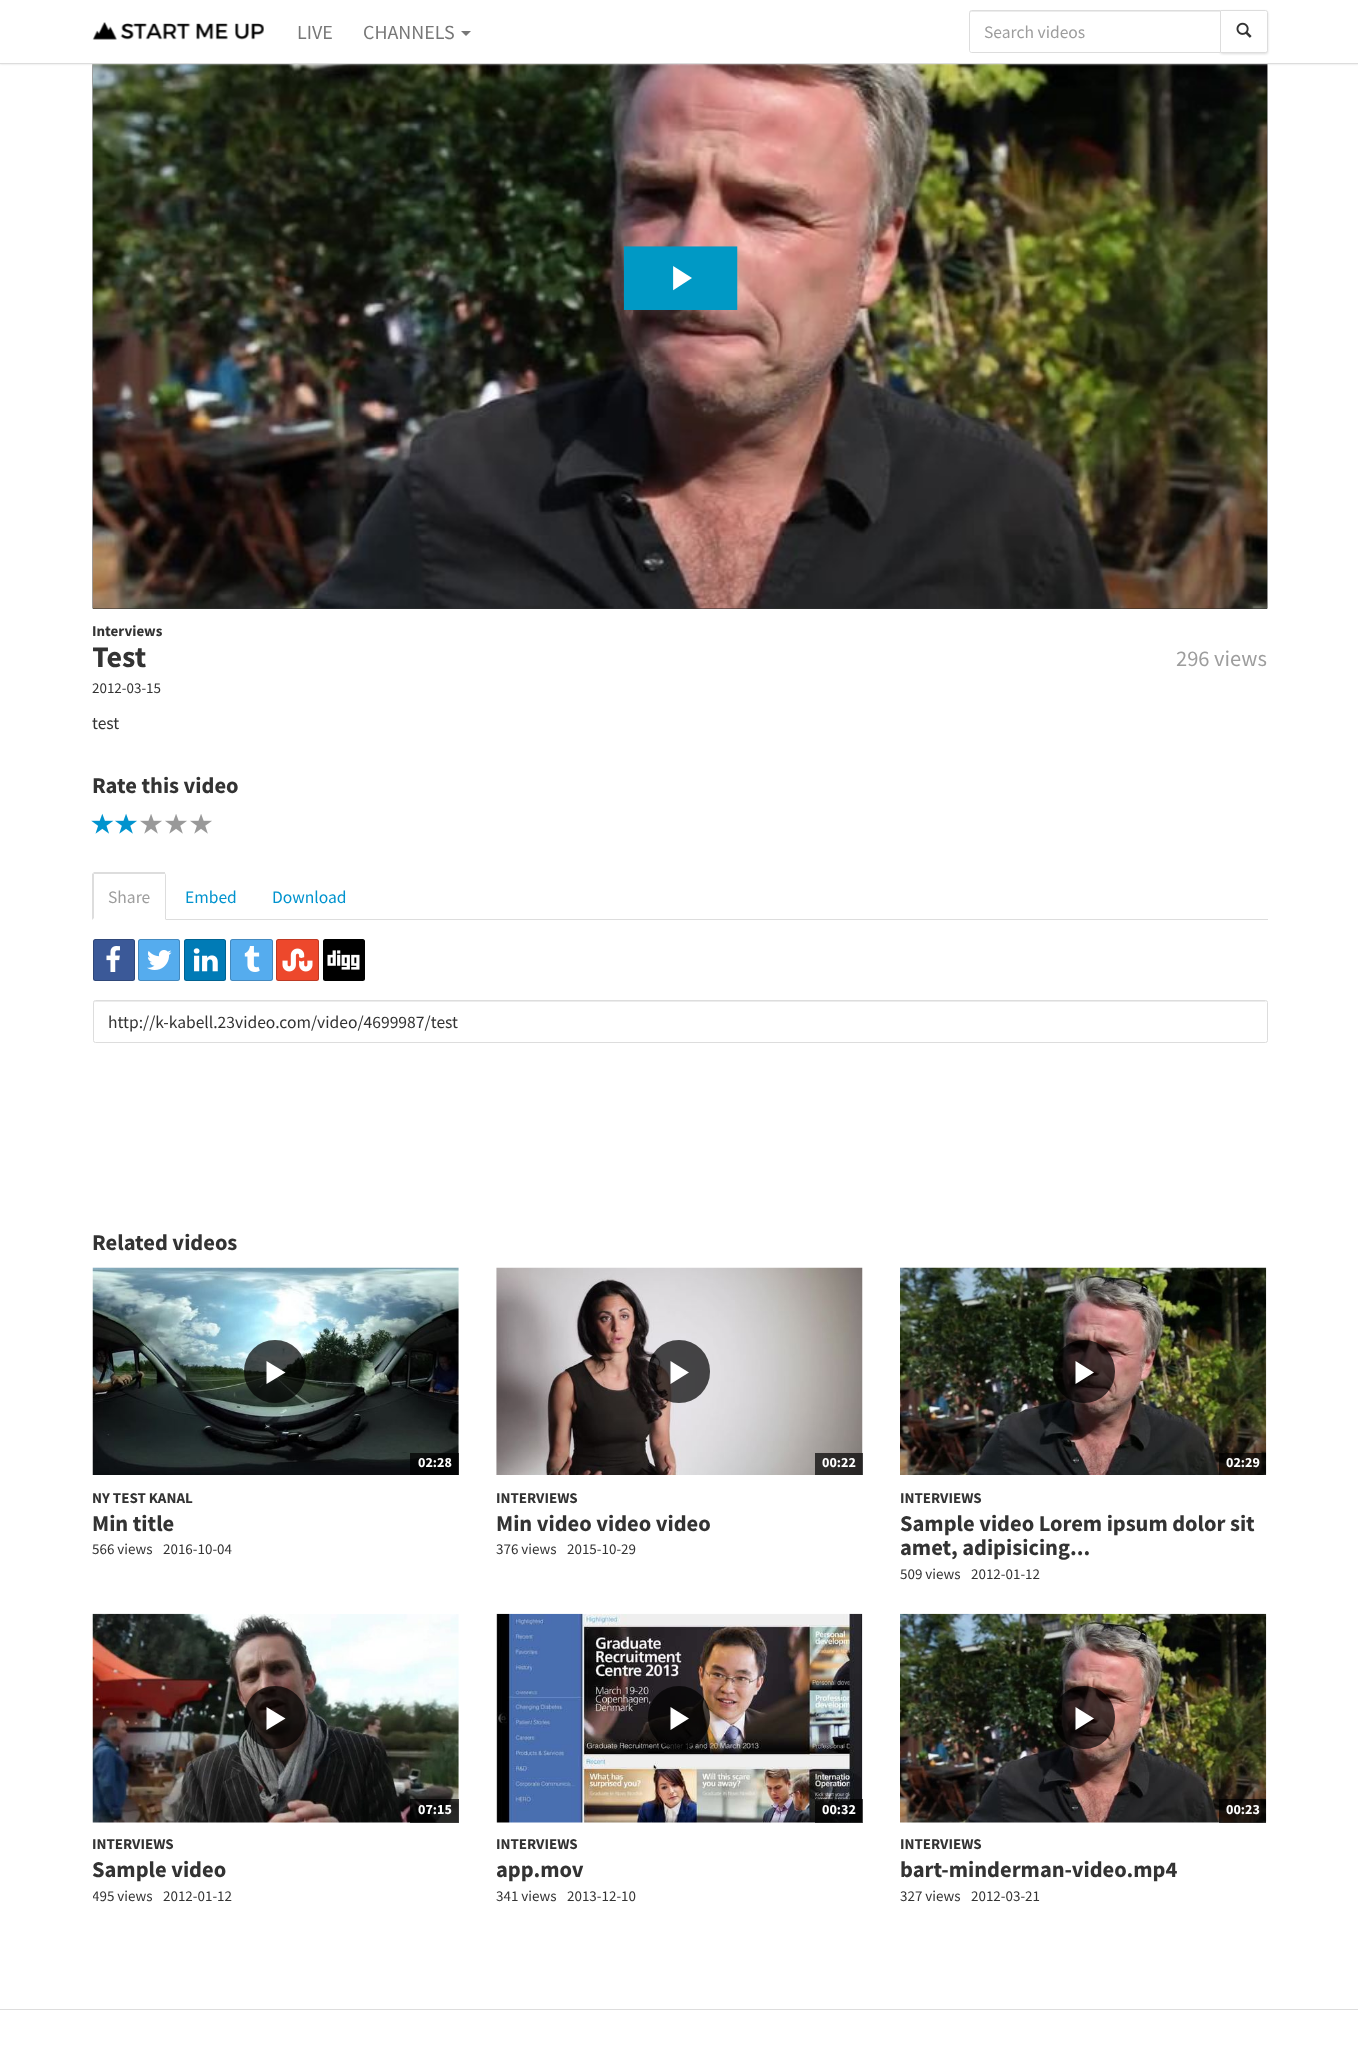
<svg xmlns="http://www.w3.org/2000/svg" width="1358" height="2067" viewBox="0 0 1358 2067">
  <defs>
    <filter id="blur1" x="-50%" y="-200%" width="200%" height="500%"><feGaussianBlur stdDeviation="1"/></filter>
    <clipPath id="clip1"><rect x="93" y="641" width="972" height="33"/></clipPath>
    <clipPath id="clip2"><rect x="93" y="1614" width="366" height="297"/></clipPath>
  </defs>
  <rect width="100%" height="100%" fill="#ffffff"/>
  <image x="92" y="64" width="1176" height="545" href="img3.png"/>
  <rect x="0" y="0" width="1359" height="64" fill="#dddddd" filter="url(#blur1)"/>
  <rect x="0" y="0" width="1358" height="63" fill="#ffffff"/>
  <rect x="0" y="63" width="1358" height="1" fill="#dddddd"/>
  <image x="92" y="22" width="172" height="18" href="img1.png"/>
  <text x="297" y="39" font-family="Source Sans Pro" font-size="20" fill="#777777">LIVE</text>
  <text x="363" y="39" font-family="Source Sans Pro" font-size="20" fill="#777777">CHANNELS</text>
  <path d="M461 31H471L466 36Z" fill="#777777"/>
  <rect x="1220" y="11" width="48" height="43" rx="2.5" fill="#dddddd" filter="url(#blur1)"/>
  <path d="M1220.5 10.5H1265.5C1266.5 10.5 1267.5 11.5 1267.5 12.5V50.5C1267.5 51.5 1266.5 52.5 1265.5 52.5H1220.5Z" fill="#ffffff" stroke="#dddddd"/>
  <path d="M971.5 10H1221V53H971.5C970 53 969 52 969 50.5V12.5C969 11 970 10 971.5 10Z" fill="#ffffff"/>
  <path d="M971 12H1220V11H971H970V13Z" fill="#ececec"/>
  <path d="M971.5 10.5H1220.5V52.5H971.5C970.5 52.5 969.5 51.5 969.5 50.5V12.5C969.5 11.5 970.5 10.5 971.5 10.5Z" fill="none" stroke="#dddddd"/>
  <text x="984" y="38" font-family="Source Sans Pro" font-size="17.5" fill="#9d9d9d">Search videos</text>
  <image x="1236" y="22" width="16" height="16" href="img2.png"/>
  <text x="92" y="636" font-family="Source Sans Pro" font-size="15" font-weight="bold" fill="#333333">Interviews</text>
  <g clip-path="url(#clip1)">
    <text x="92" y="667" font-family="Source Sans Pro" font-size="30" font-weight="bold" fill="#333333">Test</text>
  </g>
  <text x="1176" y="666" font-family="Source Sans Pro" font-size="22.5" fill="#9d9d9d">296 views</text>
  <text x="92" y="693" font-family="Source Sans Pro" font-size="15" fill="#333333">2012-03-15</text>
  <text x="92" y="729" font-family="Source Sans Pro" font-size="17.5" fill="#333333">test</text>
  <text x="92" y="793" font-family="Source Sans Pro" font-size="22.5" font-weight="bold" fill="#333333">Rate this video</text>
  <image x="91" y="813" width="23" height="21" href="img4.png"/>
  <image x="115" y="813" width="22" height="21" href="img5.png"/>
  <image x="140" y="814" width="22" height="20" href="img6.png"/>
  <image x="165" y="814" width="22" height="20" href="img6.png"/>
  <image x="190" y="814" width="22" height="20" href="img6.png"/>
  <rect x="166" y="919" width="1102" height="1" fill="#dddddd"/>
  <path d="M95 874H94L93 873L94 872H165V873V874H164Z" fill="#dddddd"/>
  <path d="M165 873L166 875V920L165 919V874Z" fill="#dddddd"/>
  <path d="M92 920V874L93 873L94 874V918Z" fill="#dddddd"/>
  <text x="108" y="903" font-family="Source Sans Pro" font-size="17.5" fill="#9d9d9d">Share</text>
  <text x="185" y="903" font-family="Source Sans Pro" font-size="17.5" fill="#0093ce">Embed</text>
  <text x="272" y="903" font-family="Source Sans Pro" font-size="17.5" fill="#0093ce">Download</text>
  <rect x="93" y="939" width="42" height="42" rx="2.5" fill="#3b5998"/>
  <rect x="93.5" y="939.5" width="41" height="41" rx="2" fill="none" stroke="#000000" stroke-opacity="0.2"/>
  <image x="106" y="946" width="14" height="26" href="img7.png"/>
  <rect x="138" y="939" width="42" height="42" rx="2.5" fill="#55acee"/>
  <rect x="138.5" y="939.5" width="41" height="41" rx="2" fill="none" stroke="#000000" stroke-opacity="0.2"/>
  <image x="147" y="950" width="25" height="20" href="img8.png"/>
  <rect x="184" y="939" width="42" height="42" rx="2.5" fill="#007bb6"/>
  <rect x="184.5" y="939.5" width="41" height="41" rx="2" fill="none" stroke="#000000" stroke-opacity="0.2"/>
  <image x="193" y="948" width="25" height="24" href="img9.png"/>
  <rect x="230" y="939" width="43" height="42" rx="2.5" fill="#55acee"/>
  <rect x="230.5" y="939.5" width="42" height="41" rx="2" fill="none" stroke="#000000" stroke-opacity="0.2"/>
  <image x="244" y="946" width="16" height="26" href="img10.png"/>
  <rect x="276" y="939" width="43" height="42" rx="2.5" fill="#ed482c"/>
  <rect x="276.5" y="939.5" width="42" height="41" rx="2" fill="none" stroke="#000000" stroke-opacity="0.2"/>
  <image x="282" y="948" width="31" height="24" href="img11.png"/>
  <rect x="323" y="939" width="42" height="42" rx="2.5" fill="#000000"/>
  <rect x="323.5" y="939.5" width="41" height="41" rx="2" fill="none" stroke="#000000" stroke-opacity="0.2"/>
  <image x="327" y="950" width="33" height="20" href="img12.png"/>
  <path d="M95 1002H1265C1266 1002 1266 1003 1266 1004C1266 1003 1266 1001 1265 1001H95L94 1002V1004C94 1003 94 1002 95 1002Z" fill="#ececec"/>
  <rect x="93.5" y="1000.5" width="1174" height="42" rx="2" fill="none" stroke="#dddddd"/>
  <text x="108" y="1028" font-family="Source Sans Pro" font-size="17.5" fill="#333333">http://k-kabell.23video.com/video/4699987/test</text>
  <text x="92" y="1250" font-family="Source Sans Pro" font-size="22.5" font-weight="bold" fill="#333333">Related videos</text>
  <image x="92" y="1267" width="367" height="208" href="img13.png"/>
  <rect x="244" y="1340" width="62" height="63" rx="31" fill="#000000" fill-opacity="0.7"/>
  <path d="M266.5 1384L285.5 1372.5L266.5 1361Z" fill="#ffffff"/>
  <rect x="410" y="1453" width="49" height="22" fill="#000000" fill-opacity="0.7"/>
  <text x="418" y="1467" font-family="Source Sans Pro" font-size="14" font-weight="bold" fill="#ffffff">02:28</text>
  <text x="92" y="1503" font-family="Source Sans Pro" font-size="15" font-weight="bold" fill="#333333">NY TEST KANAL</text>
  <text x="92" y="1531" font-family="Source Sans Pro" font-size="22.5" font-weight="bold" fill="#333333">Min title</text>
  <text x="92" y="1554" font-family="Source Sans Pro" font-size="15" fill="#333333">566 views</text>
  <text x="163" y="1554" font-family="Source Sans Pro" font-size="15" fill="#333333">2016-10-04</text>
  <image x="496" y="1267" width="367" height="208" href="img14.png"/>
  <rect x="648" y="1340" width="62" height="63" rx="31" fill="#000000" fill-opacity="0.7"/>
  <path d="M670.5 1384L689 1372.5L670.5 1361Z" fill="#ffffff"/>
  <rect x="815" y="1453" width="48" height="22" fill="#000000" fill-opacity="0.7"/>
  <text x="822" y="1467" font-family="Source Sans Pro" font-size="14" font-weight="bold" fill="#ffffff">00:22</text>
  <text x="496" y="1503" font-family="Source Sans Pro" font-size="15" font-weight="bold" fill="#333333">INTERVIEWS</text>
  <text x="496" y="1531" font-family="Source Sans Pro" font-size="22.5" font-weight="bold" fill="#333333">Min video video video</text>
  <text x="496" y="1554" font-family="Source Sans Pro" font-size="15" fill="#333333">376 views</text>
  <text x="567" y="1554" font-family="Source Sans Pro" font-size="15" fill="#333333">2015-10-29</text>
  <image x="900" y="1267" width="367" height="208" href="img15.png"/>
  <rect x="1053" y="1340" width="62" height="63" rx="31" fill="#000000" fill-opacity="0.7"/>
  <path d="M1075.5 1384L1094 1372.5L1075.5 1361Z" fill="#ffffff"/>
  <rect x="1219" y="1453" width="47" height="22" fill="#000000" fill-opacity="0.7"/>
  <text x="1226" y="1467" font-family="Source Sans Pro" font-size="14" font-weight="bold" fill="#ffffff">02:29</text>
  <text x="900" y="1503" font-family="Source Sans Pro" font-size="15" font-weight="bold" fill="#333333">INTERVIEWS</text>
  <text x="900" y="1531" font-family="Source Sans Pro" font-size="22.5" font-weight="bold" fill="#333333">Sample video Lorem ipsum dolor sit</text>
  <text x="900" y="1555" font-family="Source Sans Pro" font-size="22.5" font-weight="bold" fill="#333333">amet, adipisicing...</text>
  <text x="900" y="1579" font-family="Source Sans Pro" font-size="15" fill="#333333">509 views</text>
  <text x="971" y="1579" font-family="Source Sans Pro" font-size="15" fill="#333333">2012-01-12</text>
  <image x="92" y="1613" width="367" height="210" href="img16.png"/>
  <rect x="244" y="1686" width="62" height="63" rx="31" fill="#000000" fill-opacity="0.7"/>
  <path d="M266.5 1730L285.5 1718.5L266.5 1707Z" fill="#ffffff"/>
  <rect x="410" y="1799" width="49" height="24" fill="#000000" fill-opacity="0.7"/>
  <text x="418" y="1814" font-family="Source Sans Pro" font-size="14" font-weight="bold" fill="#ffffff">07:15</text>
  <text x="92" y="1849" font-family="Source Sans Pro" font-size="15" font-weight="bold" fill="#333333">INTERVIEWS</text>
  <text x="92" y="1877" font-family="Source Sans Pro" font-size="22.5" font-weight="bold" fill="#333333">Sample video</text>
  <g clip-path="url(#clip2)">
    <text x="92" y="1901" font-family="Source Sans Pro" font-size="15" fill="#333333">495 views</text>
  </g>
  <text x="163" y="1901" font-family="Source Sans Pro" font-size="15" fill="#333333">2012-01-12</text>
  <image x="496" y="1613" width="367" height="210" href="img17.png"/>
  <rect x="648" y="1686" width="62" height="63" rx="31" fill="#000000" fill-opacity="0.7"/>
  <path d="M670.5 1730L689 1718.5L670.5 1707Z" fill="#ffffff"/>
  <rect x="815" y="1799" width="48" height="24" fill="#000000" fill-opacity="0.7"/>
  <text x="822" y="1814" font-family="Source Sans Pro" font-size="14" font-weight="bold" fill="#ffffff">00:32</text>
  <text x="496" y="1849" font-family="Source Sans Pro" font-size="15" font-weight="bold" fill="#333333">INTERVIEWS</text>
  <text x="496" y="1877" font-family="Source Sans Pro" font-size="22.5" font-weight="bold" fill="#333333">app.mov</text>
  <text x="496" y="1901" font-family="Source Sans Pro" font-size="15" fill="#333333">341 views</text>
  <text x="567" y="1901" font-family="Source Sans Pro" font-size="15" fill="#333333">2013-12-10</text>
  <image x="900" y="1613" width="367" height="210" href="img18.png"/>
  <rect x="1053" y="1686" width="62" height="63" rx="31" fill="#000000" fill-opacity="0.7"/>
  <path d="M1075.5 1730L1094 1718.5L1075.5 1707Z" fill="#ffffff"/>
  <rect x="1219" y="1799" width="47" height="24" fill="#000000" fill-opacity="0.7"/>
  <text x="1226" y="1814" font-family="Source Sans Pro" font-size="14" font-weight="bold" fill="#ffffff">00:23</text>
  <text x="900" y="1849" font-family="Source Sans Pro" font-size="15" font-weight="bold" fill="#333333">INTERVIEWS</text>
  <text x="900" y="1877" font-family="Source Sans Pro" font-size="22.5" font-weight="bold" fill="#333333">bart-minderman-video.mp4</text>
  <text x="900" y="1901" font-family="Source Sans Pro" font-size="15" fill="#333333">327 views</text>
  <text x="971" y="1901" font-family="Source Sans Pro" font-size="15" fill="#333333">2012-03-21</text>
  <rect x="0" y="2009" width="1358" height="1" fill="#dddddd"/>
</svg>
